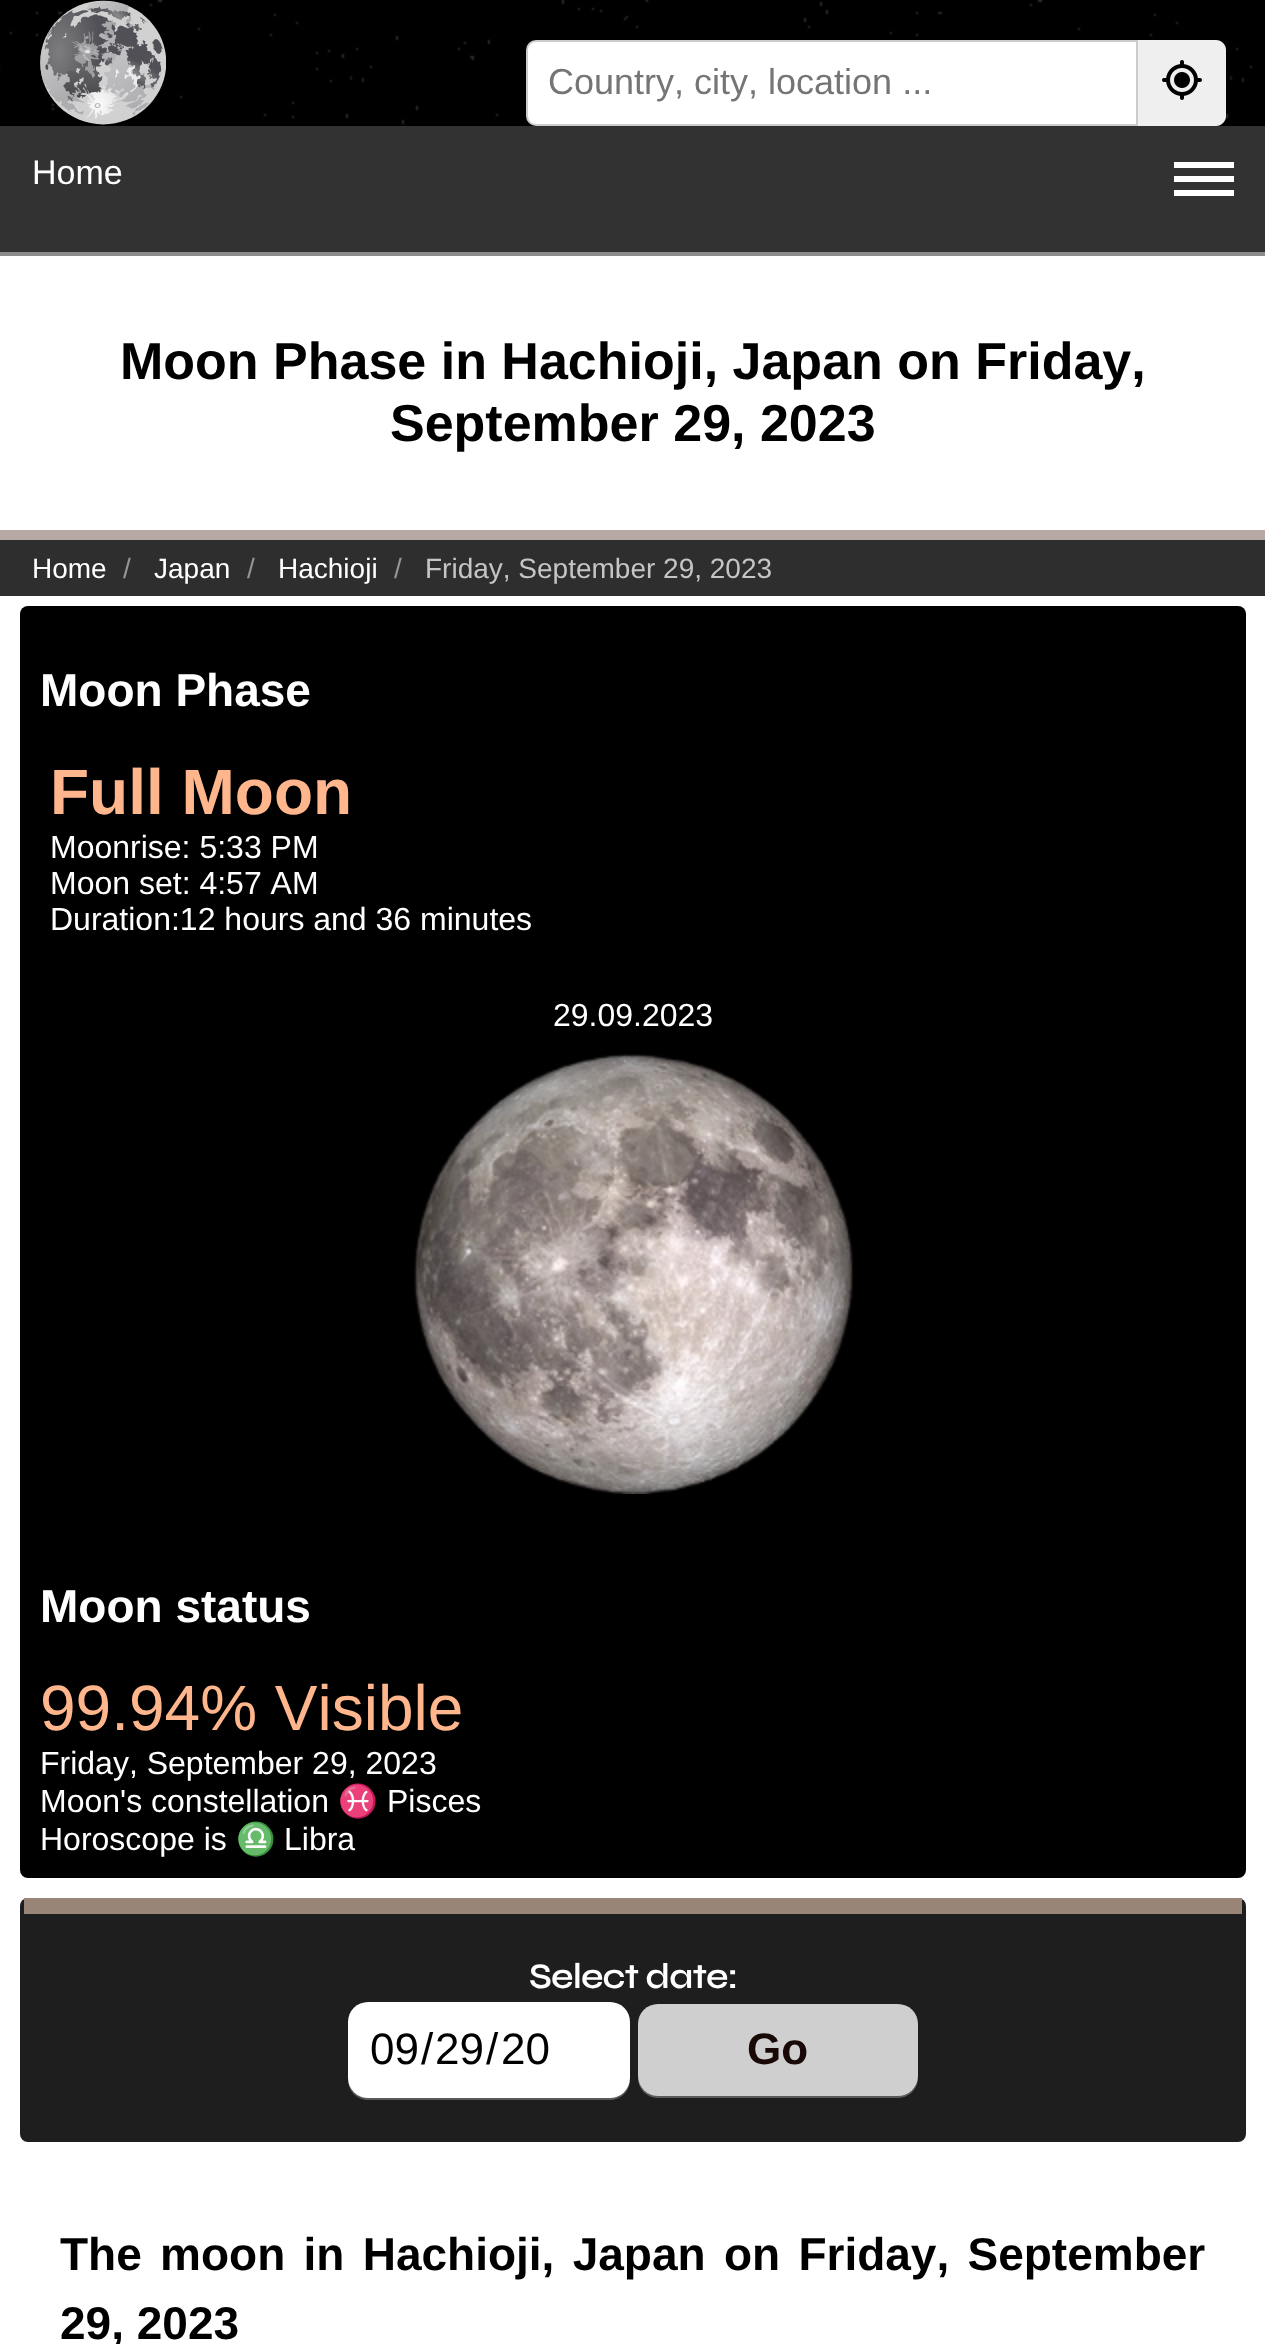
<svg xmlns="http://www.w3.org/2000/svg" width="1265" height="2344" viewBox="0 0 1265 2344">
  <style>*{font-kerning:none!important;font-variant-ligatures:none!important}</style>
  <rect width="100%" height="100%" fill="#000000"/>
  <image x="0" y="0" width="1253" height="125" href="img1.png"/>
  <image x="40" y="0" width="126" height="125" href="img2.png"/>
  <path d="M536 41H1137V125H536C531 125 527 121 527 116V50C527 45 531 41 536 41Z" fill="#ffffff" stroke="#cccccc" stroke-width="2"/>
  <text x="548" y="94" font-family="Liberation Sans" font-size="36" fill="#757575">Country, city, location ...</text>
  <path d="M1138 40H1216C1221.5 40 1226 44.5 1226 50V116C1226 121.5 1221.5 126 1216 126H1138Z" fill="#efefef"/>
  <image x="1162" y="60" width="40" height="40" href="img3.png"/>
  <rect x="0" y="126" width="1265" height="126" fill="#323232"/>
  <rect x="0" y="252" width="1265" height="4" fill="#8b8b8b"/>
  <text x="32" y="184" font-family="Liberation Sans" font-size="34" fill="#ffffff">Home</text>
  <rect x="1174" y="162" width="60" height="6" fill="#ffffff"/>
  <rect x="1174" y="176" width="60" height="6" fill="#ffffff"/>
  <rect x="1174" y="190" width="60" height="6" fill="#ffffff"/>
  <rect x="0" y="256" width="1265" height="274" fill="#ffffff"/>
  <rect x="0" y="530" width="1265" height="10" fill="#b6a9a4"/>
  <text x="120" y="379" font-family="Liberation Sans" font-size="52" font-weight="bold" fill="#000000">Moon Phase in Hachioji, Japan on Friday,</text>
  <text x="390" y="441" font-family="Liberation Sans" font-size="52" font-weight="bold" fill="#000000">September 29, 2023</text>
  <rect x="0" y="540" width="1265" height="56" fill="#2e2e2e"/>
  <text x="32" y="578" font-family="Liberation Sans" font-size="28" fill="#ffffff">Home</text>
  <text x="123" y="578" font-family="Liberation Sans" font-size="28" fill="#959595">/</text>
  <text x="154" y="578" font-family="Liberation Sans" font-size="28" fill="#ffffff">Japan</text>
  <text x="247" y="578" font-family="Liberation Sans" font-size="28" fill="#959595">/</text>
  <text x="278" y="578" font-family="Liberation Sans" font-size="28" fill="#ffffff">Hachioji</text>
  <text x="394" y="578" font-family="Liberation Sans" font-size="28" fill="#959595">/</text>
  <text x="425" y="578" font-family="Liberation Sans" font-size="28" fill="#c5c5c5">Friday, September 29, 2023</text>
  <rect x="0" y="596" width="1265" height="1748" fill="#ffffff"/>
  <rect x="20" y="606" width="1226" height="1272" rx="8" fill="#000000"/>
  <text x="40" y="706" font-family="Liberation Sans" font-size="46" font-weight="bold" fill="#ffffff">Moon Phase</text>
  <text x="50" y="814" font-family="Liberation Sans" font-size="64" font-weight="bold" fill="#ffb68d">Full Moon</text>
  <text x="50" y="858" font-family="Liberation Sans" font-size="32" fill="#ffffff">Moonrise: 5:33 PM</text>
  <text x="50" y="894" font-family="Liberation Sans" font-size="32" fill="#ffffff">Moon set: 4:57 AM</text>
  <text x="50" y="930" font-family="Liberation Sans" font-size="32" fill="#ffffff">Duration:12 hours and 36 minutes</text>
  <text x="553" y="1026" font-family="Liberation Sans" font-size="32" fill="#ffffff">29.09.2023</text>
  <image x="414" y="1054" width="440" height="440" href="img4.png"/>
  <text x="40" y="1622" font-family="Liberation Sans" font-size="46" font-weight="bold" fill="#ffffff">Moon status</text>
  <text x="40" y="1730" font-family="Liberation Sans" font-size="64" fill="#ffb68d">99.94% Visible</text>
  <text x="40" y="1774" font-family="Liberation Sans" font-size="32" fill="#ffffff">Friday, September 29, 2023</text>
  <text x="40" y="1812" font-family="Liberation Sans" font-size="32" fill="#ffffff">Moon's constellation</text>
  <text x="338" y="1812" font-family="Noto Color Emoji" font-size="32" fill="#ffffff">♓</text>
  <text x="387" y="1812" font-family="Liberation Sans" font-size="32" fill="#ffffff">Pisces</text>
  <text x="40" y="1850" font-family="Liberation Sans" font-size="32" fill="#ffffff">Horoscope is</text>
  <text x="236" y="1850" font-family="Noto Color Emoji" font-size="32" fill="#ffffff">♎</text>
  <text x="284" y="1850" font-family="Liberation Sans" font-size="32" fill="#ffffff">Libra</text>
  <rect x="20" y="1898" width="1226" height="244" rx="8" fill="#1e1e1e"/>
  <rect x="24" y="1898" width="1218" height="16" fill="#998478"/>
  <text x="529" y="1988" font-family="Syne" font-size="36" font-weight="600" letter-spacing="-0.9" fill="#ffffff">Select date:</text>
  <path d="M348 2078V2080C348 2091 357 2100 368 2100H610C621 2100 630 2091 630 2080V2078C630 2089 621 2098 610 2098H368C357 2098 348 2089 348 2078Z" fill="#5a5a5a"/>
  <rect x="348" y="2002" width="282" height="96" rx="20" fill="#ffffff"/>
  <text x="370" y="2064" font-family="Liberation Sans" font-size="44" fill="#000000">09</text>
  <text x="421" y="2064" font-family="Liberation Sans" font-size="44" fill="#000000">/</text>
  <text x="435" y="2064" font-family="Liberation Sans" font-size="44" fill="#000000">29</text>
  <text x="486" y="2064" font-family="Liberation Sans" font-size="44" fill="#000000">/</text>
  <text x="501" y="2064" font-family="Liberation Sans" font-size="44" fill="#000000">20</text>
  <path d="M638 2076V2078C638 2089 647 2098 658 2098H898C909 2098 918 2089 918 2078V2076C918 2087 909 2096 898 2096H658C647 2096 638 2087 638 2076Z" fill="#5a5a5a"/>
  <rect x="638" y="2004" width="280" height="92" rx="20" fill="#cfcfcf"/>
  <text x="747" y="2064" font-family="Liberation Sans" font-size="44" font-weight="bold" fill="#190906">Go</text>
  <text x="60" y="2270" word-spacing="5.5" font-family="Liberation Sans" font-size="46" font-weight="bold" fill="#000000">The moon in Hachioji, Japan on Friday, September</text>
  <text x="60" y="2339" font-family="Liberation Sans" font-size="46" font-weight="bold" fill="#000000">29, 2023</text>
</svg>
